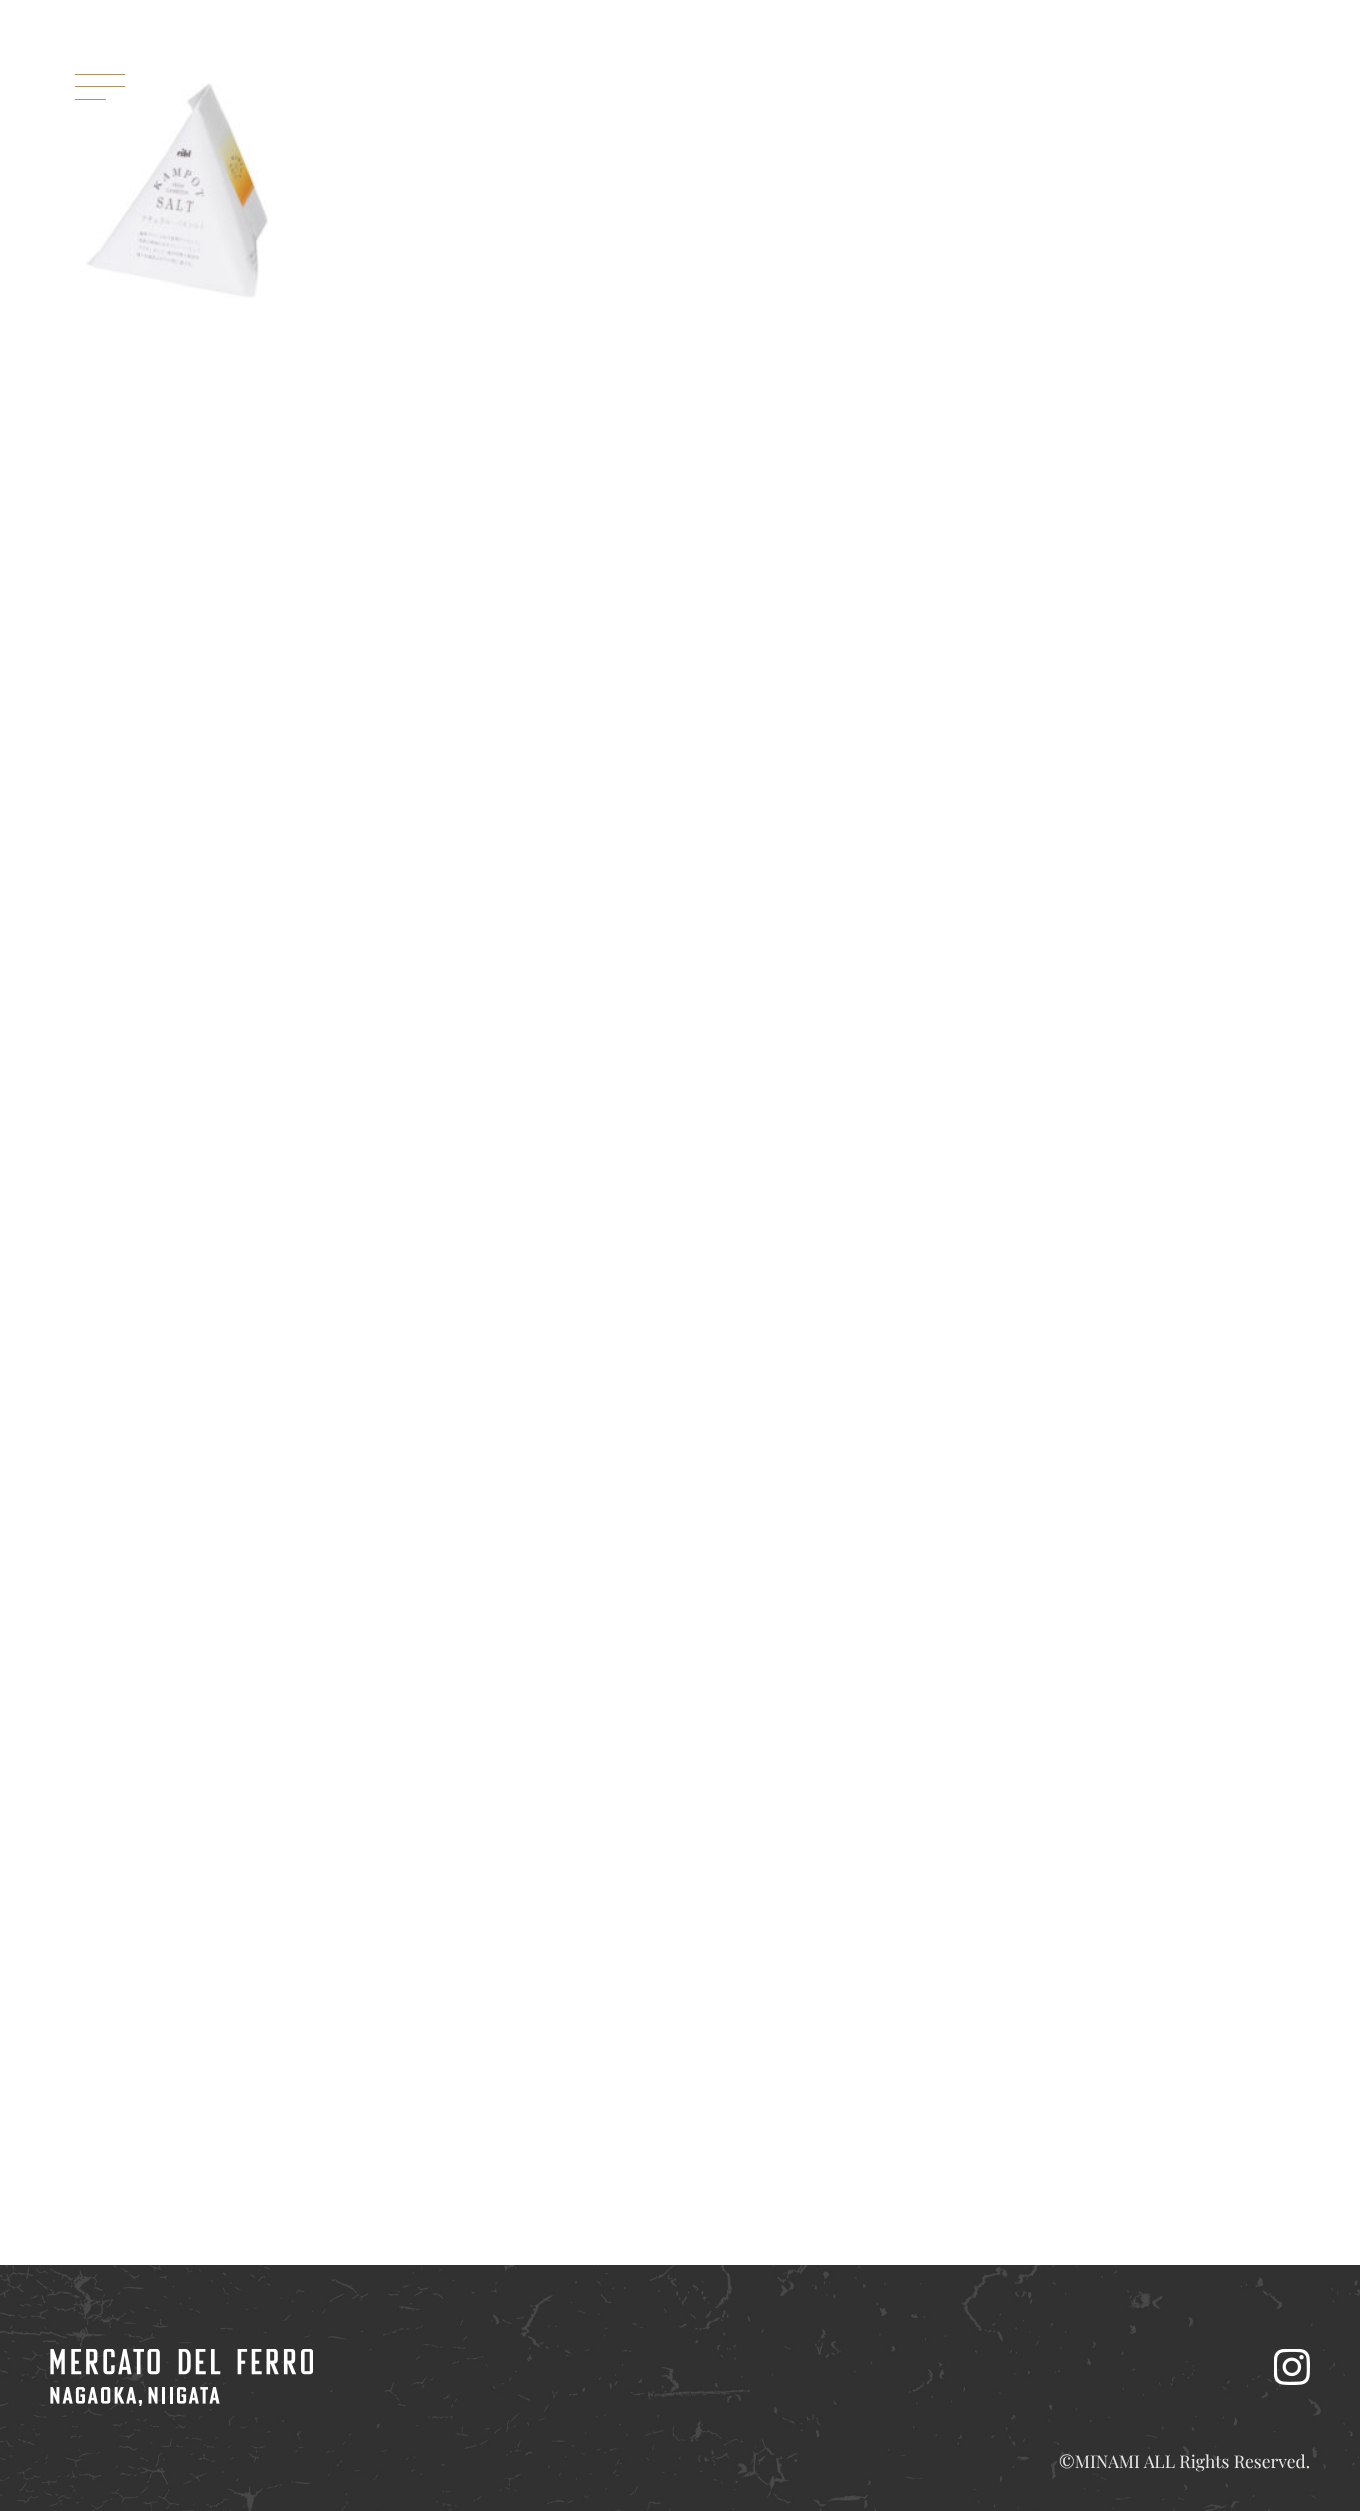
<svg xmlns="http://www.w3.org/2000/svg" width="1360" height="2511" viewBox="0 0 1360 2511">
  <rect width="100%" height="100%" fill="#ffffff"/>
  <rect x="75" y="74" width="50" height="1" fill="#af9263"/>
  <image x="86" y="83" width="182" height="215" href="img1.png"/>
  <rect x="75" y="86" width="50" height="1" fill="#af9263"/>
  <rect x="75" y="99" width="31" height="1" fill="#af9263"/>
  <image x="0" y="2265" width="1360" height="246" href="img2.png"/>
  <image x="50" y="2349" width="263" height="57" href="img3.png"/>
  <image x="1274" y="2349" width="36" height="36" href="img4.png"/>
  <text x="1059" y="2468" font-family="Playfair Display" font-size="17.5" fill="#e8e8e5">©MINAMI ALL Rights Reserved.</text>
</svg>
